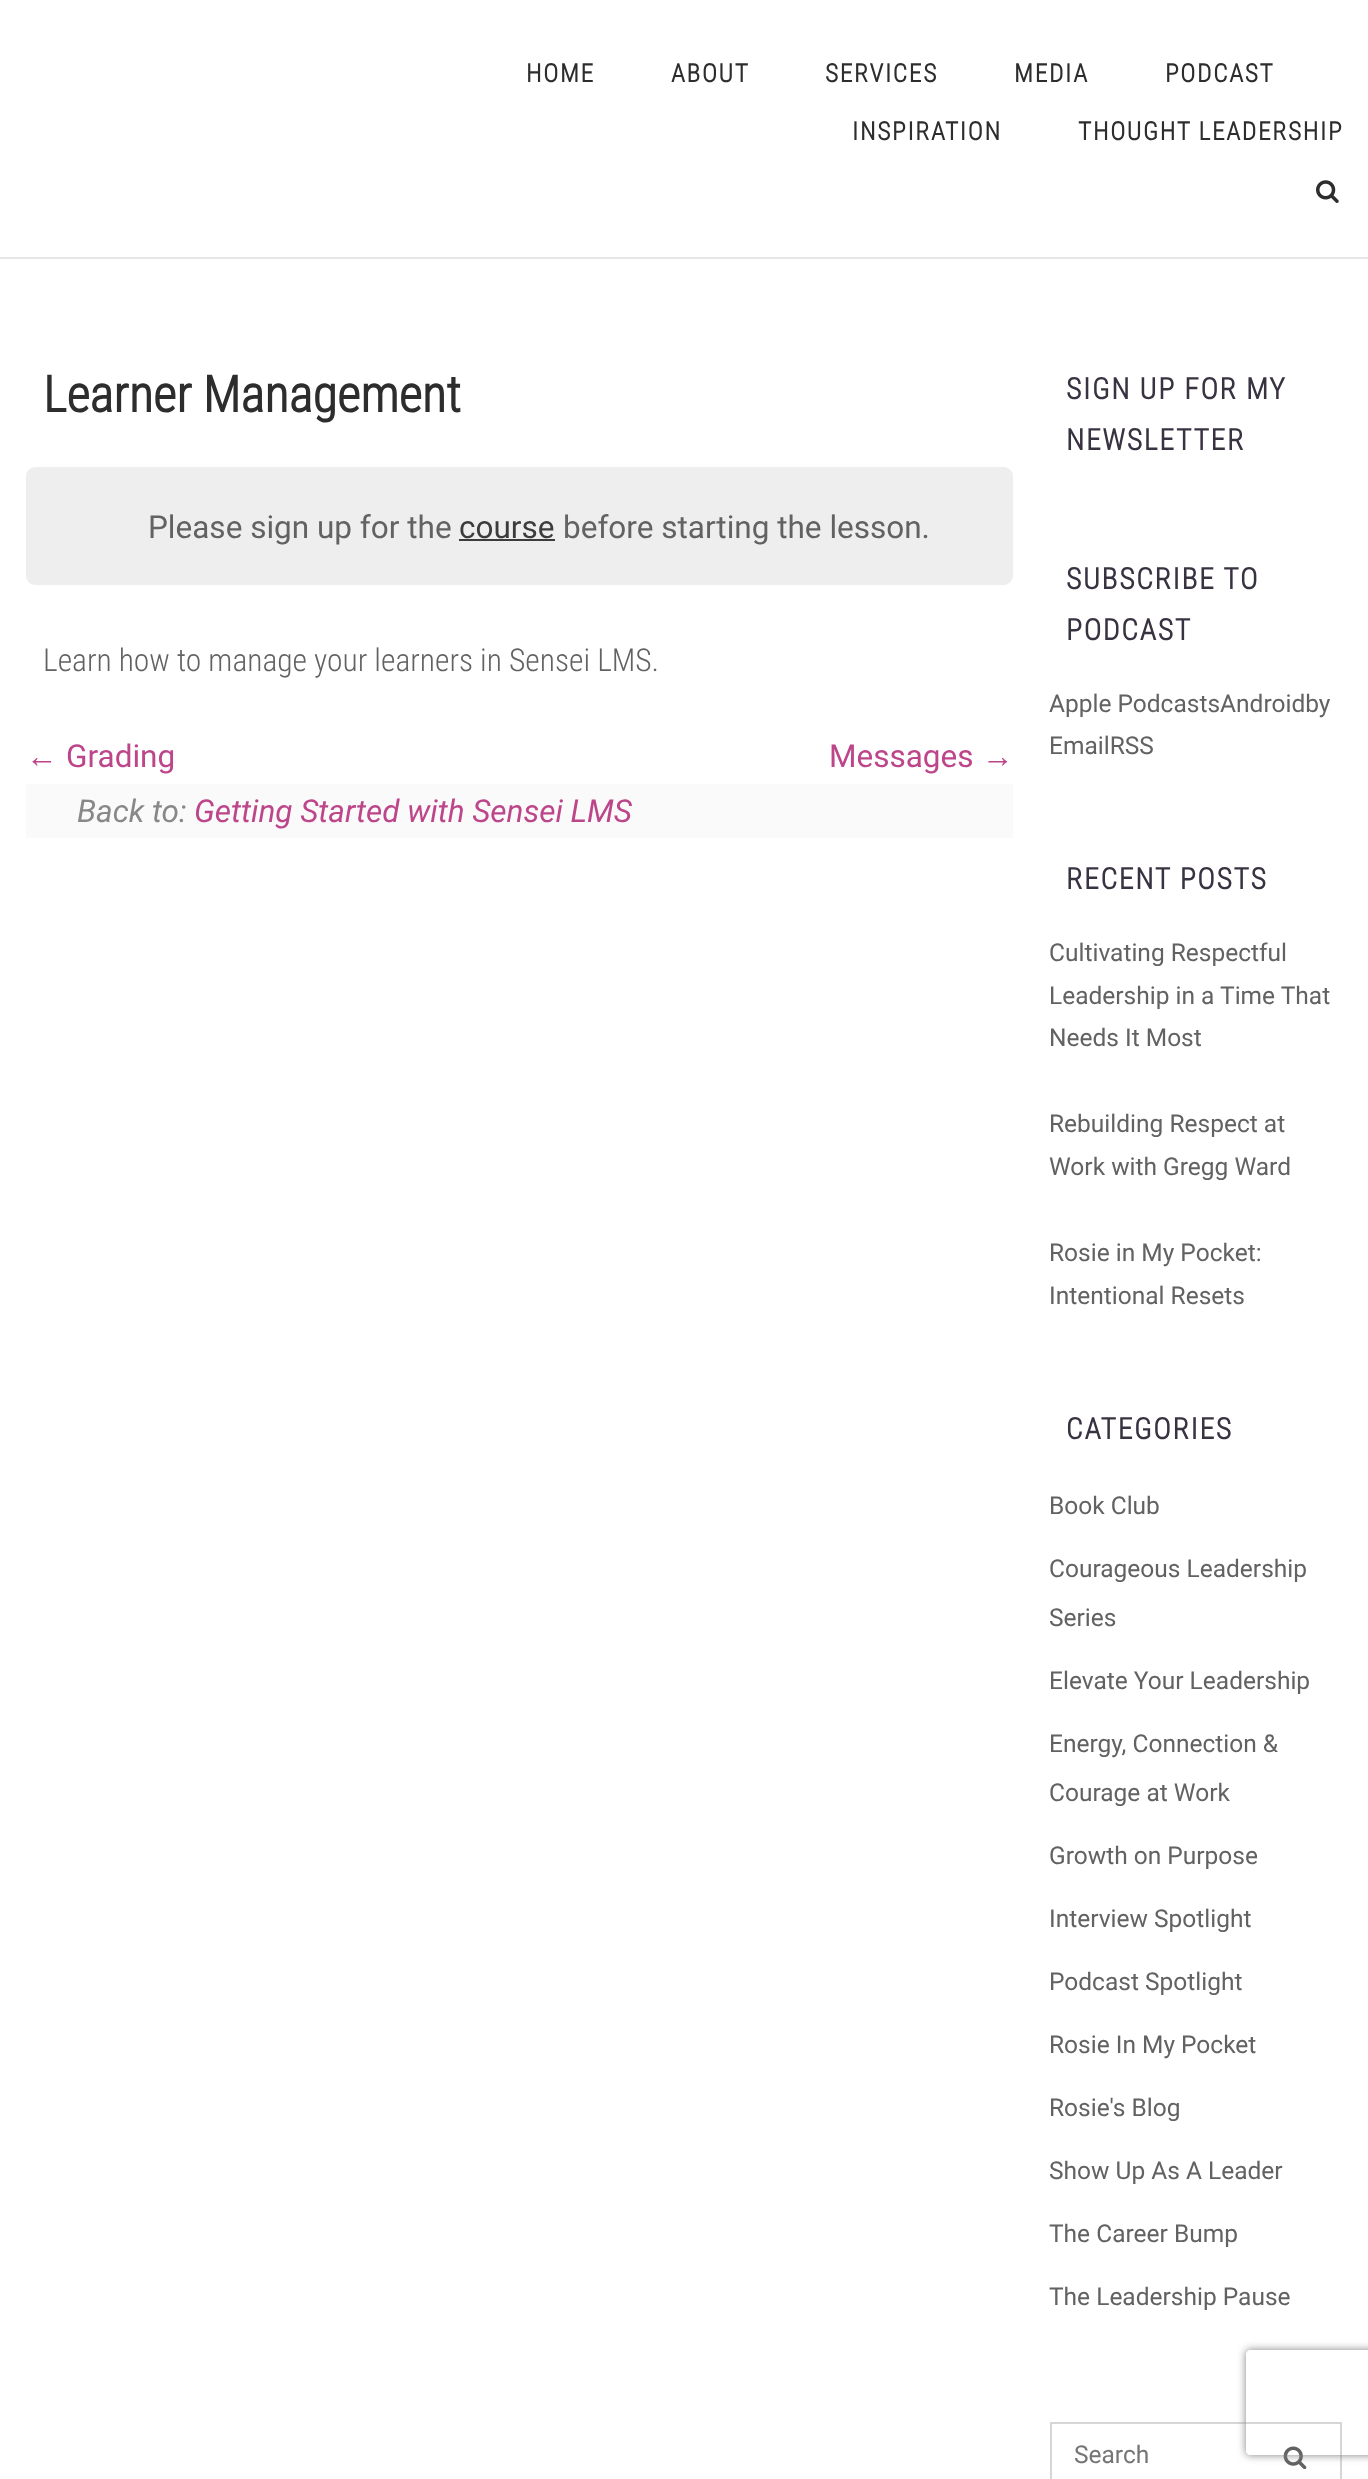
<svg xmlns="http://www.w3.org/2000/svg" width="1368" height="2479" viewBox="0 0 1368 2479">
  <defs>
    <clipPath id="clip1"><path d="M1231 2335H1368V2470H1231ZM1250 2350H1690C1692 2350 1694 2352 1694 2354V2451C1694 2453 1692 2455 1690 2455H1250C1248 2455 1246 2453 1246 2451V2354C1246 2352 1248 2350 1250 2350Z" clip-rule="evenodd"/></clipPath>
    <filter id="blur1" x="-50%" y="-200%" width="200%" height="500%"><feGaussianBlur stdDeviation="4.5"/></filter>
  </defs>
  <rect width="100%" height="100%" fill="#ffffff"/>
  <rect x="0" y="257" width="1368" height="2" fill="#e6e6e6"/>
  <text x="526" y="82" font-family="Roboto Condensed" font-size="25.25" font-weight="bold" letter-spacing="1.75" fill="#2d2d2d">HOME</text>
  <text x="671" y="82" font-family="Roboto Condensed" font-size="25.25" font-weight="bold" letter-spacing="1.75" fill="#2d2d2d">ABOUT</text>
  <text x="825" y="82" font-family="Roboto Condensed" font-size="25.25" font-weight="bold" letter-spacing="1.75" fill="#2d2d2d">SERVICES</text>
  <text x="1014" y="82" font-family="Roboto Condensed" font-size="25.25" font-weight="bold" letter-spacing="1.75" fill="#2d2d2d">MEDIA</text>
  <text x="1165" y="82" font-family="Roboto Condensed" font-size="25.25" font-weight="bold" letter-spacing="1.75" fill="#2d2d2d">PODCAST</text>
  <text x="852" y="140" font-family="Roboto Condensed" font-size="25.25" font-weight="bold" letter-spacing="1.75" fill="#2d2d2d">INSPIRATION</text>
  <text x="1078" y="140" font-family="Roboto Condensed" font-size="25.25" font-weight="bold" letter-spacing="1.75" fill="#2d2d2d">THOUGHT LEADERSHIP</text>
  <image x="1316" y="180" width="23" height="23" href="img1.png"/>
  <text x="43" y="412" font-family="Roboto Condensed" font-size="50.5" font-weight="bold" fill="#2d2d2d">Learner Management</text>
  <rect x="26" y="467" width="987" height="118" rx="9" fill="#eeeeee"/>
  <text x="148" y="538" font-family="Roboto" font-size="31.5" fill="#626262">Please sign up for the</text>
  <text x="459" y="538" font-family="Roboto" font-size="31.5" fill="#3c3c3c">course</text>
  <rect x="459" y="539" width="96" height="2" fill="#3c3c3c"/>
  <text x="563" y="538" font-family="Roboto" font-size="31.5" fill="#626262">before starting the lesson.</text>
  <text x="43" y="671" font-family="Roboto Condensed" font-size="31.5" font-weight="300" fill="#626262">Learn how to manage your learners in Sensei LMS.</text>
  <text x="26" y="767" font-family="Liberation Sans" font-size="31.5" fill="#bd468b">←</text>
  <text x="66" y="767" font-family="Roboto" font-size="31.5" fill="#bd468b">Grading</text>
  <text x="829" y="767" font-family="Roboto" font-size="31.5" fill="#bd468b">Messages</text>
  <text x="982" y="767" font-family="Liberation Sans" font-size="31.5" fill="#bd468b">→</text>
  <rect x="26" y="784" width="987" height="54" fill="#fafafa"/>
  <text x="77" y="822" font-family="Roboto" font-size="31.5" font-style="italic" fill="#888888">Back to:</text>
  <text x="194" y="822" font-family="Roboto" font-size="31.5" font-style="italic" fill="#bd468b">Getting Started with Sensei LMS</text>
  <text x="1066" y="399" font-family="Roboto Condensed" font-size="29.5" font-weight="bold" letter-spacing="1.75" fill="#393341">SIGN UP FOR MY</text>
  <text x="1066" y="450" font-family="Roboto Condensed" font-size="29.5" font-weight="bold" letter-spacing="1.75" fill="#393341">NEWSLETTER</text>
  <text x="1066" y="589" font-family="Roboto Condensed" font-size="29.5" font-weight="bold" letter-spacing="1.75" fill="#393341">SUBSCRIBE TO</text>
  <text x="1066" y="640" font-family="Roboto Condensed" font-size="29.5" font-weight="bold" letter-spacing="1.75" fill="#393341">PODCAST</text>
  <text x="1049" y="712" font-family="Roboto" font-size="24.5" fill="#626262">Apple PodcastsAndroidby</text>
  <text x="1049" y="754" font-family="Roboto" font-size="24.5" fill="#626262">EmailRSS</text>
  <text x="1066" y="889" font-family="Roboto Condensed" font-size="29.5" font-weight="bold" letter-spacing="1.75" fill="#393341">RECENT POSTS</text>
  <text x="1049" y="961" font-family="Roboto" font-size="24.5" fill="#626262">Cultivating Respectful</text>
  <text x="1049" y="1004" font-family="Roboto" font-size="24.5" fill="#626262">Leadership in a Time That</text>
  <text x="1049" y="1046" font-family="Roboto" font-size="24.5" fill="#626262">Needs It Most</text>
  <text x="1049" y="1132" font-family="Roboto" font-size="24.5" fill="#626262">Rebuilding Respect at</text>
  <text x="1049" y="1175" font-family="Roboto" font-size="24.5" fill="#626262">Work with Gregg Ward</text>
  <text x="1049" y="1261" font-family="Roboto" font-size="24.5" fill="#626262">Rosie in My Pocket:</text>
  <text x="1049" y="1304" font-family="Roboto" font-size="24.5" fill="#626262">Intentional Resets</text>
  <text x="1066" y="1439" font-family="Roboto Condensed" font-size="29.5" font-weight="bold" letter-spacing="1.75" fill="#393341">CATEGORIES</text>
  <text x="1049" y="1514" font-family="Roboto" font-size="24.5" fill="#626262">Book Club</text>
  <text x="1049" y="1577" font-family="Roboto" font-size="24.5" fill="#626262">Courageous Leadership</text>
  <text x="1049" y="1626" font-family="Roboto" font-size="24.5" fill="#626262">Series</text>
  <text x="1049" y="1689" font-family="Roboto" font-size="24.5" fill="#626262">Elevate Your Leadership</text>
  <text x="1049" y="1752" font-family="Roboto" font-size="24.5" fill="#626262">Energy, Connection &amp;</text>
  <text x="1049" y="1801" font-family="Roboto" font-size="24.5" fill="#626262">Courage at Work</text>
  <text x="1049" y="1864" font-family="Roboto" font-size="24.5" fill="#626262">Growth on Purpose</text>
  <text x="1049" y="1927" font-family="Roboto" font-size="24.5" fill="#626262">Interview Spotlight</text>
  <text x="1049" y="1990" font-family="Roboto" font-size="24.5" fill="#626262">Podcast Spotlight</text>
  <text x="1049" y="2053" font-family="Roboto" font-size="24.5" fill="#626262">Rosie In My Pocket</text>
  <text x="1049" y="2116" font-family="Roboto" font-size="24.5" fill="#626262">Rosie's Blog</text>
  <text x="1049" y="2179" font-family="Roboto" font-size="24.5" fill="#626262">Show Up As A Leader</text>
  <text x="1049" y="2242" font-family="Roboto" font-size="24.5" fill="#626262">The Career Bump</text>
  <text x="1049" y="2305" font-family="Roboto" font-size="24.5" fill="#626262">The Leadership Pause</text>
  <rect x="1051" y="2423" width="290" height="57" fill="none" stroke="#d6d6d6" stroke-width="2"/>
  <text x="1074" y="2463" font-family="Roboto" font-size="24.5" fill="#757575">Search</text>
  <image x="1283" y="2446" width="24" height="23" href="img2.png"/>
  <g clip-path="url(#clip1)">
    <rect x="1246" y="2350" width="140" height="105" rx="4" fill="#808080" filter="url(#blur1)"/>
  </g>
</svg>
